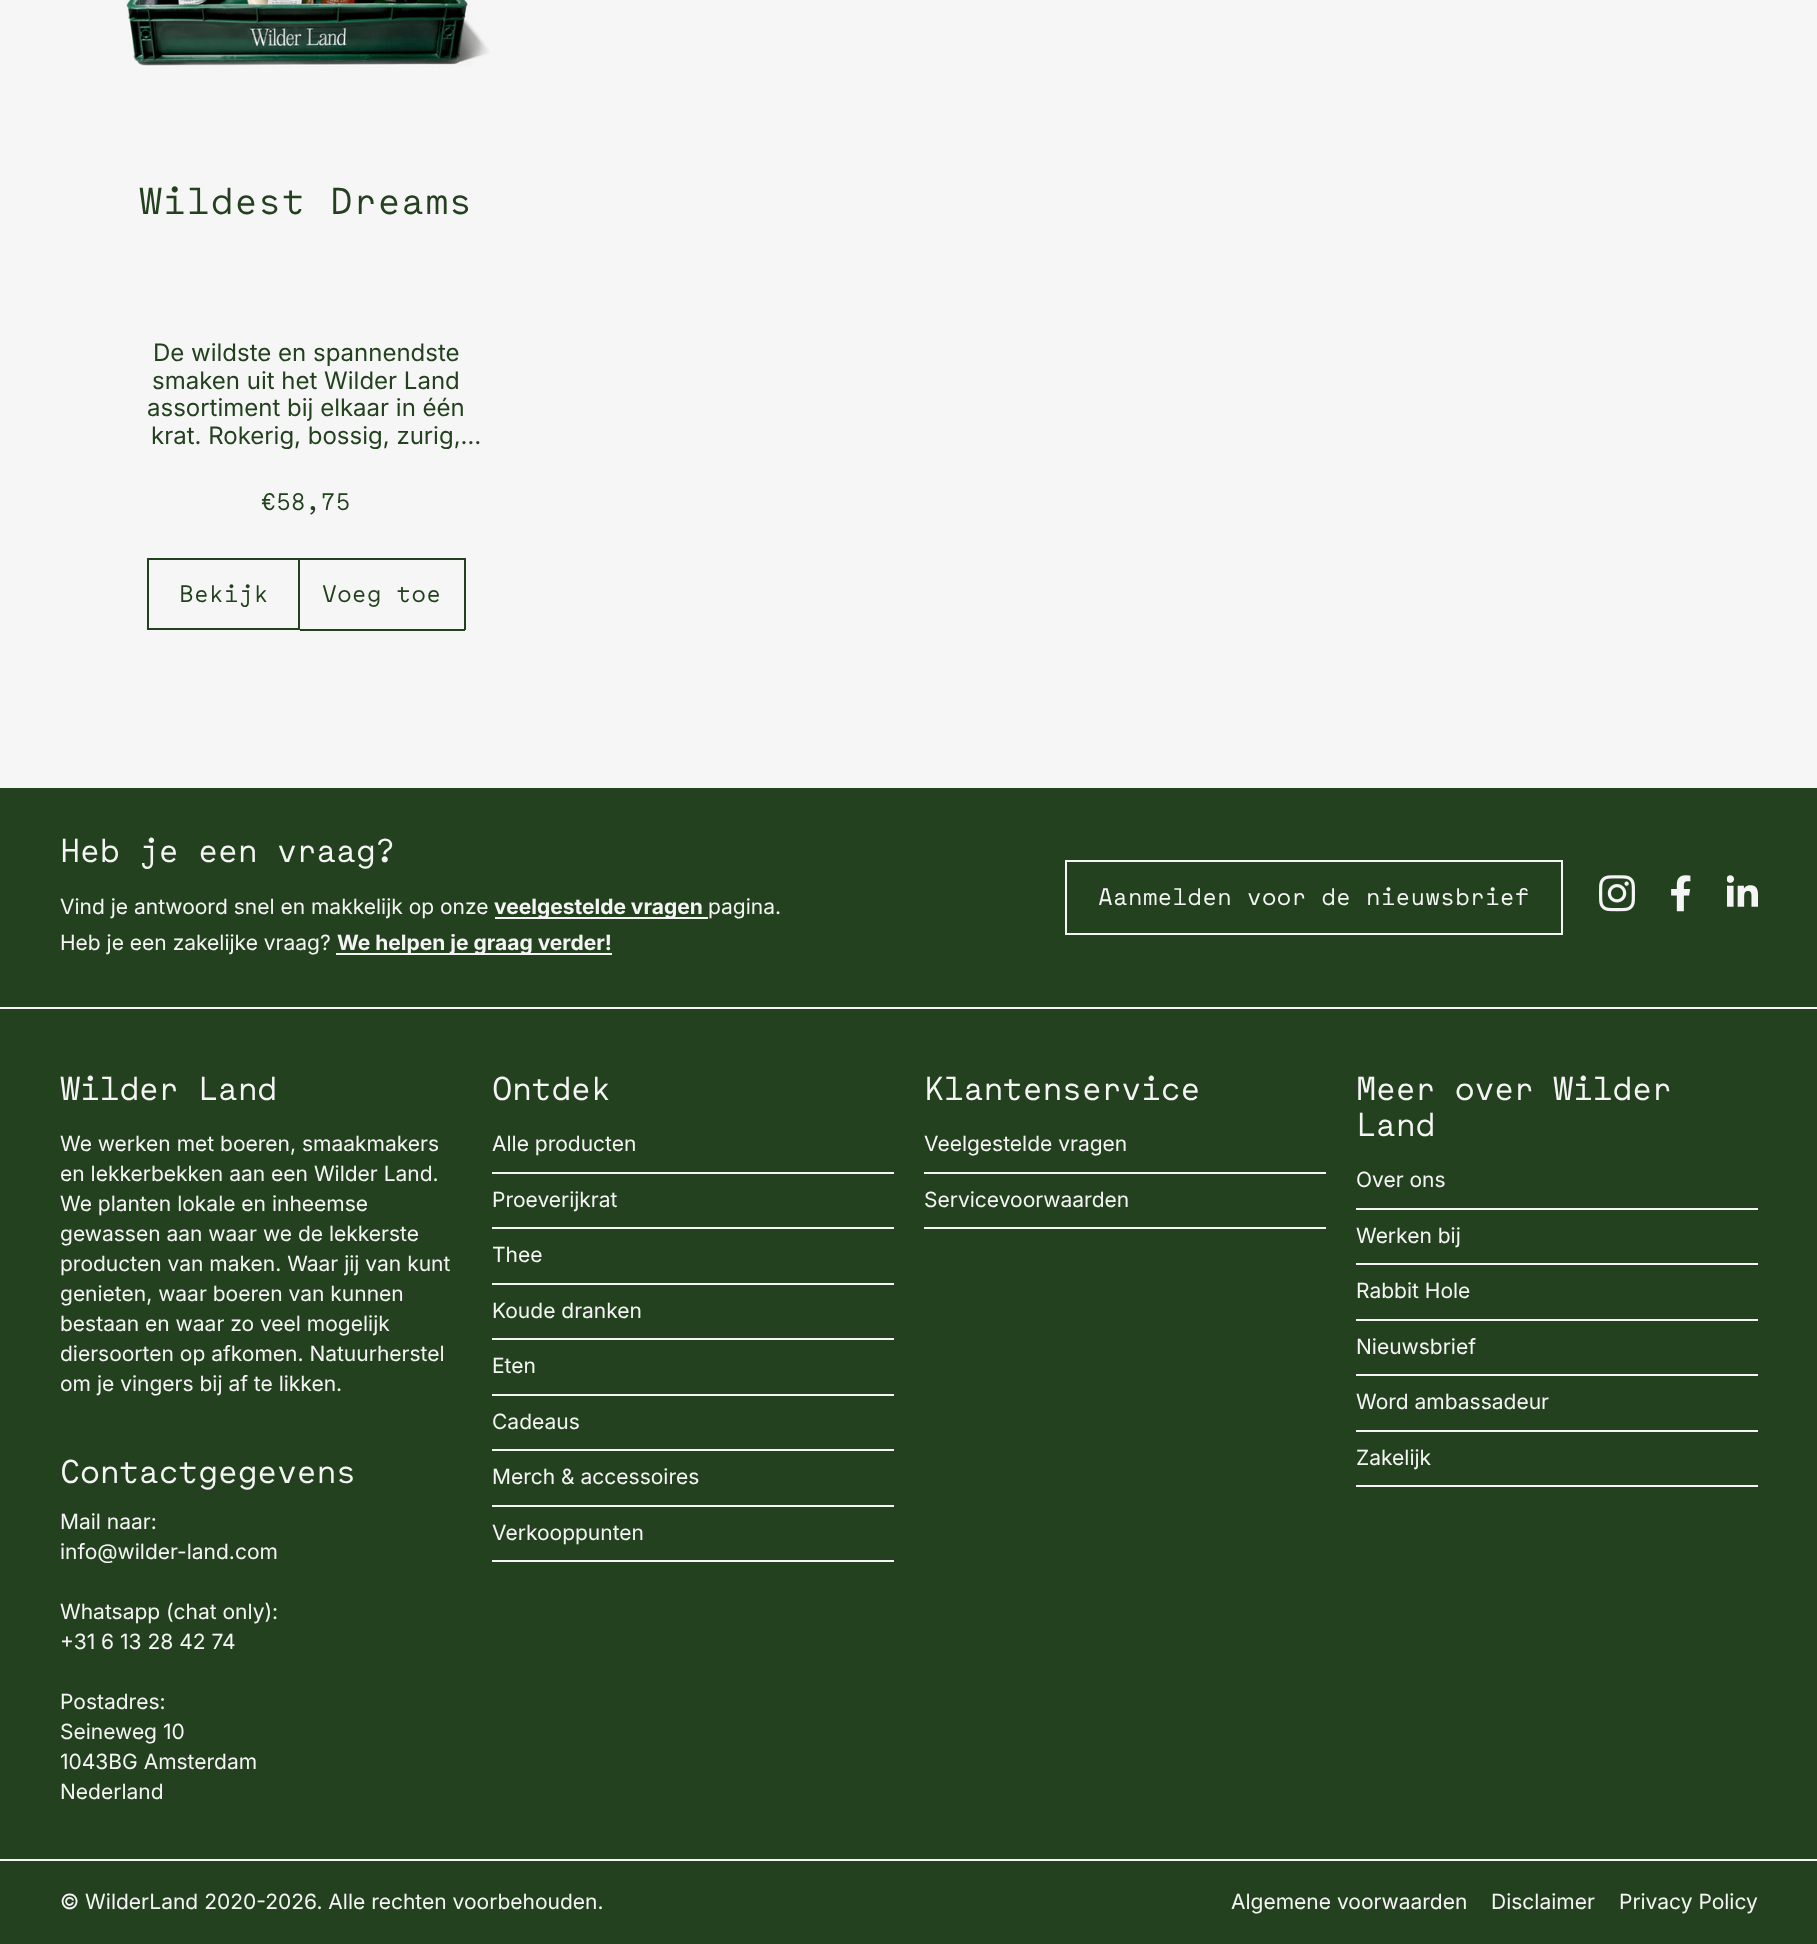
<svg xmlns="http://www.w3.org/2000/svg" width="1817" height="1944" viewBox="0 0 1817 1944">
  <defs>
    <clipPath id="clip1"><rect x="120" y="339" width="372" height="110"/></clipPath>
  </defs>
  <rect width="100%" height="100%" fill="#f5f6f5"/>
  <image x="126" y="0" width="364" height="68" href="img1.png"/>
  <text x="139" y="214" font-family="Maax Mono" font-size="37.5" letter-spacing="0.6" fill="#23411e">Wildest Dreams</text>
  <text x="153" y="361" font-family="Inter" font-size="24" fill="#23411e">De wildste en spannendste</text>
  <text x="152" y="389" font-family="Inter" font-size="24" fill="#23411e">smaken uit het Wilder Land</text>
  <text x="147" y="416" font-family="Inter" font-size="24" fill="#23411e">assortiment bij elkaar in één</text>
  <g clip-path="url(#clip1)">
    <text x="151" y="444" font-family="Inter" font-size="24" fill="#23411e">krat. Rokerig, bossig, zurig,…</text>
  </g>
  <text x="261" y="510" font-family="Maax Mono" font-size="24" fill="#23411e">€58,75</text>
  <rect x="148" y="559" width="151" height="70" fill="none" stroke="#23411e" stroke-width="2"/>
  <text x="179" y="602" font-family="Maax Mono" font-size="24" fill="#23411e">Bekijk</text>
  <rect x="300" y="558" width="165" height="2" fill="#23411e"/>
  <rect x="464" y="558" width="2" height="72" fill="#23411e"/>
  <rect x="300" y="629" width="165" height="2" fill="#23411e"/>
  <text x="322" y="602" font-family="Maax Mono" font-size="24" fill="#23411e">Voeg toe</text>
  <rect x="0" y="788" width="1817" height="1156" fill="#23411e"/>
  <rect x="0" y="1007" width="1817" height="2" fill="#f5f5f5"/>
  <text x="60" y="862" font-family="Maax Mono" font-size="33" letter-spacing="-0.75" fill="#f5f5f5">Heb je een vraag?</text>
  <text x="60" y="914" font-family="Inter" font-size="21" fill="#f5f5f5">Vind je antwoord snel en makkelijk op onze</text>
  <rect x="495" y="917" width="213" height="2" fill="#f5f5f5"/>
  <text x="494" y="914" font-family="Inter" font-size="21" font-weight="bold" fill="#f5f5f5">veelgestelde vragen</text>
  <text x="708" y="914" font-family="Inter" font-size="21" fill="#f5f5f5">pagina.</text>
  <text x="60" y="950" font-family="Inter" font-size="21" fill="#f5f5f5">Heb je een zakelijke vraag?</text>
  <rect x="336" y="953" width="276" height="2" fill="#f5f5f5"/>
  <text x="337" y="950" font-family="Inter" font-size="21" font-weight="bold" fill="#f5f5f5">We helpen je graag verder!</text>
  <rect x="1066" y="861" width="496" height="73" fill="none" stroke="#f5f5f5" stroke-width="2"/>
  <text x="1098" y="905" font-family="Maax Mono" font-size="24" fill="#f5f5f5">Aanmelden voor de nieuwsbrief</text>
  <image x="1599" y="875" width="36" height="37" href="img2.png"/>
  <image x="1671" y="875" width="20" height="37" href="img3.png"/>
  <image x="1727" y="875" width="31" height="32" href="img4.png"/>
  <rect x="0" y="1859" width="1817" height="2" fill="#f5f5f5"/>
  <text x="60" y="1100" font-family="Maax Mono" font-size="33" letter-spacing="-0.75" fill="#f5f5f5">Wilder Land</text>
  <text x="60" y="1151" font-family="Inter" font-size="21" fill="#f5f5f5">We werken met boeren, smaakmakers</text>
  <text x="60" y="1181" font-family="Inter" font-size="21" fill="#f5f5f5">en lekkerbekken aan een Wilder Land.</text>
  <text x="60" y="1211" font-family="Inter" font-size="21" fill="#f5f5f5">We planten lokale en inheemse</text>
  <text x="60" y="1241" font-family="Inter" font-size="21" fill="#f5f5f5">gewassen aan waar we de lekkerste</text>
  <text x="60" y="1271" font-family="Inter" font-size="21" fill="#f5f5f5">producten van maken. Waar jij van kunt</text>
  <text x="60" y="1301" font-family="Inter" font-size="21" fill="#f5f5f5">genieten, waar boeren van kunnen</text>
  <text x="60" y="1331" font-family="Inter" font-size="21" fill="#f5f5f5">bestaan en waar zo veel mogelijk</text>
  <text x="60" y="1361" font-family="Inter" font-size="21" fill="#f5f5f5">diersoorten op afkomen. Natuurherstel</text>
  <text x="60" y="1391" font-family="Inter" font-size="21" fill="#f5f5f5">om je vingers bij af te likken.</text>
  <text x="60" y="1483" font-family="Maax Mono" font-size="33" letter-spacing="-0.75" fill="#f5f5f5">Contactgegevens</text>
  <text x="60" y="1529" font-family="Inter" font-size="21" fill="#f5f5f5">Mail naar:</text>
  <text x="60" y="1559" font-family="Inter" font-size="21" fill="#f5f5f5">info@wilder-land.com</text>
  <text x="60" y="1619" font-family="Inter" font-size="21" fill="#f5f5f5">Whatsapp (chat only):</text>
  <text x="60" y="1649" font-family="Inter" font-size="21" fill="#f5f5f5">+31 6 13 28 42 74</text>
  <text x="60" y="1709" font-family="Inter" font-size="21" fill="#f5f5f5">Postadres:</text>
  <text x="60" y="1739" font-family="Inter" font-size="21" fill="#f5f5f5">Seineweg 10</text>
  <text x="60" y="1769" font-family="Inter" font-size="21" fill="#f5f5f5">1043BG Amsterdam</text>
  <text x="60" y="1799" font-family="Inter" font-size="21" fill="#f5f5f5">Nederland</text>
  <text x="492" y="1100" font-family="Maax Mono" font-size="33" letter-spacing="-0.75" fill="#f5f5f5">Ontdek</text>
  <rect x="492" y="1172" width="402" height="2" fill="#f5f5f5"/>
  <text x="492" y="1151" font-family="Inter" font-size="21" fill="#f5f5f5">Alle producten</text>
  <rect x="492" y="1227" width="402" height="2" fill="#f5f5f5"/>
  <text x="492" y="1207" font-family="Inter" font-size="21" fill="#f5f5f5">Proeverijkrat</text>
  <rect x="492" y="1283" width="402" height="2" fill="#f5f5f5"/>
  <text x="492" y="1262" font-family="Inter" font-size="21" fill="#f5f5f5">Thee</text>
  <rect x="492" y="1338" width="402" height="2" fill="#f5f5f5"/>
  <text x="492" y="1318" font-family="Inter" font-size="21" fill="#f5f5f5">Koude dranken</text>
  <rect x="492" y="1394" width="402" height="2" fill="#f5f5f5"/>
  <text x="492" y="1373" font-family="Inter" font-size="21" fill="#f5f5f5">Eten</text>
  <rect x="492" y="1449" width="402" height="2" fill="#f5f5f5"/>
  <text x="492" y="1429" font-family="Inter" font-size="21" fill="#f5f5f5">Cadeaus</text>
  <rect x="492" y="1505" width="402" height="2" fill="#f5f5f5"/>
  <text x="492" y="1484" font-family="Inter" font-size="21" fill="#f5f5f5">Merch &amp; accessoires</text>
  <rect x="492" y="1560" width="402" height="2" fill="#f5f5f5"/>
  <text x="492" y="1540" font-family="Inter" font-size="21" fill="#f5f5f5">Verkooppunten</text>
  <text x="924" y="1100" font-family="Maax Mono" font-size="33" letter-spacing="-0.75" fill="#f5f5f5">Klantenservice</text>
  <rect x="924" y="1172" width="402" height="2" fill="#f5f5f5"/>
  <text x="924" y="1151" font-family="Inter" font-size="21" fill="#f5f5f5">Veelgestelde vragen</text>
  <rect x="924" y="1227" width="402" height="2" fill="#f5f5f5"/>
  <text x="924" y="1207" font-family="Inter" font-size="21" fill="#f5f5f5">Servicevoorwaarden</text>
  <text x="1356" y="1100" font-family="Maax Mono" font-size="33" letter-spacing="-0.75" fill="#f5f5f5">Meer over Wilder</text>
  <text x="1356" y="1136" font-family="Maax Mono" font-size="33" letter-spacing="-0.75" fill="#f5f5f5">Land</text>
  <rect x="1356" y="1208" width="402" height="2" fill="#f5f5f5"/>
  <text x="1356" y="1187" font-family="Inter" font-size="21" fill="#f5f5f5">Over ons</text>
  <rect x="1356" y="1263" width="402" height="2" fill="#f5f5f5"/>
  <text x="1356" y="1243" font-family="Inter" font-size="21" fill="#f5f5f5">Werken bij</text>
  <rect x="1356" y="1319" width="402" height="2" fill="#f5f5f5"/>
  <text x="1356" y="1298" font-family="Inter" font-size="21" fill="#f5f5f5">Rabbit Hole</text>
  <rect x="1356" y="1374" width="402" height="2" fill="#f5f5f5"/>
  <text x="1356" y="1354" font-family="Inter" font-size="21" fill="#f5f5f5">Nieuwsbrief</text>
  <rect x="1356" y="1430" width="402" height="2" fill="#f5f5f5"/>
  <text x="1356" y="1409" font-family="Inter" font-size="21" fill="#f5f5f5">Word ambassadeur</text>
  <rect x="1356" y="1485" width="402" height="2" fill="#f5f5f5"/>
  <text x="1356" y="1465" font-family="Inter" font-size="21" fill="#f5f5f5">Zakelijk</text>
  <text x="60" y="1909" font-family="Inter" font-size="21" fill="#f5f5f5">© WilderLand 2020-2026. Alle rechten voorbehouden.</text>
  <text x="1231" y="1909" font-family="Inter" font-size="21" fill="#f5f5f5">Algemene voorwaarden</text>
  <text x="1491" y="1909" font-family="Inter" font-size="21" fill="#f5f5f5">Disclaimer</text>
  <text x="1619" y="1909" font-family="Inter" font-size="21" fill="#f5f5f5">Privacy Policy</text>
</svg>
